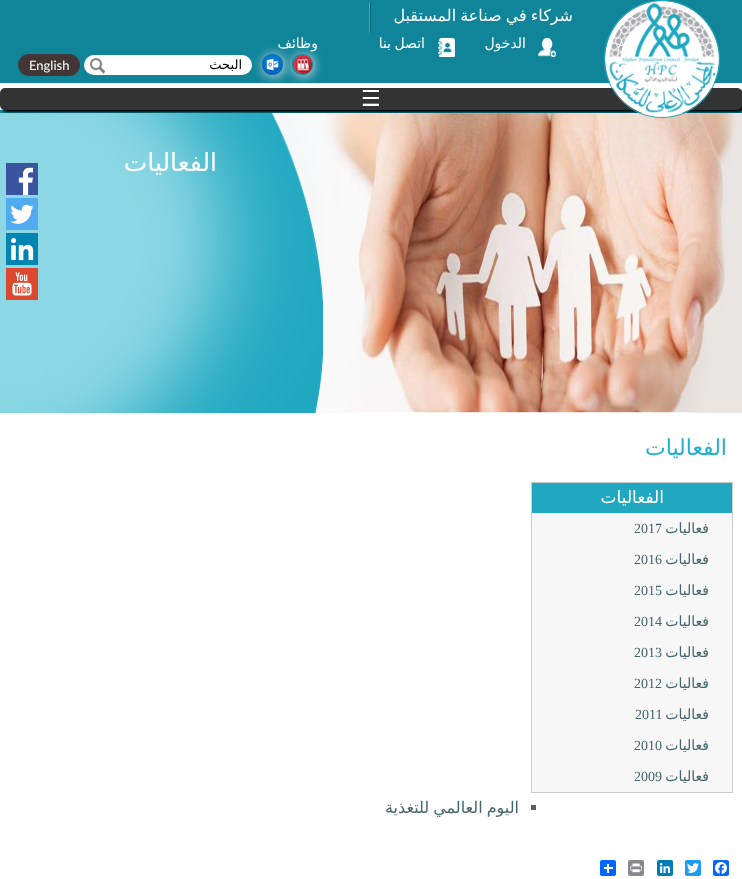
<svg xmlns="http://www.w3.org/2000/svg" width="742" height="879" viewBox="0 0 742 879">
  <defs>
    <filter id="blur1" x="-50%" y="-200%" width="200%" height="500%"><feGaussianBlur stdDeviation="1"/></filter>
    <clipPath id="clip1"><path d="M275 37H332V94H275ZM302.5 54C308.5 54 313 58.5 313 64.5C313 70.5 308.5 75 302.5 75C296.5 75 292 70.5 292 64.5C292 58.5 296.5 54 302.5 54Z" clip-rule="evenodd"/></clipPath>
    <filter id="blur2" x="-50%" y="-200%" width="200%" height="500%"><feGaussianBlur stdDeviation="5.5"/></filter>
  </defs>
  <rect width="100%" height="100%" fill="#ffffff"/>
  <rect x="0" y="110" width="742" height="3" fill="#10859a"/>
  <rect x="0" y="0" width="742" height="83" fill="#10859a"/>
  <rect x="2" y="90" width="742" height="22" rx="5" fill="#000000" filter="url(#blur1)"/>
  <g clip-path="url(#clip1)">
    <rect x="293" y="55" width="21" height="21" rx="10.5" fill="#e0dfdf" filter="url(#blur2)"/>
  </g>
  <image x="294" y="55" width="18" height="19" href="img5.png"/>
  <rect x="263" y="55" width="21" height="21" rx="10.5" fill="#e0dfdf" filter="url(#blur2)"/>
  <rect x="0" y="88" width="742" height="22" rx="5" fill="#333333"/>
  <image x="271" y="113" width="471" height="300" href="img8.png"/>
  <path d="M662 .5C694 .5 719.5 26.5 719.5 59C719.5 91.5 694 117.5 662 117.5C630 117.5 604.5 91.5 604.5 59C604.5 26.5 630 .5 662 .5Z" fill="none" stroke="#20a8c0"/>
  <image x="605" y="1" width="114" height="116" href="img1.png"/>
  <image x="369" y="2" width="2" height="31" href="img2.png"/>
  <text x="573" y="21" word-spacing="-1" font-family="DejaVu Sans" font-size="16" direction="rtl" fill="#ffffff">شركاء في صناعة المستقبل</text>
  <image x="538" y="37" width="18" height="20" href="img3.png"/>
  <text x="526" y="48" font-family="DejaVu Sans" font-size="14" direction="rtl" fill="#ffffff">الدخول</text>
  <image x="438" y="37" width="17" height="20" href="img4.png"/>
  <text x="425" y="48" word-spacing="-1" font-family="DejaVu Sans" font-size="14" direction="rtl" fill="#ffffff">اتصل بنا</text>
  <text x="318" y="48" font-family="DejaVu Sans" font-size="14" direction="rtl" fill="#ffffff">وظائف</text>
  <image x="262" y="54" width="21" height="21" href="img6.png"/>
  <rect x="84" y="55" width="168" height="20" rx="10" fill="#ffffff"/>
  <text x="242" y="69" font-family="DejaVu Sans" font-size="13" direction="rtl" fill="#000000">البحث</text>
  <image x="90" y="58" width="15" height="16" href="img7.png"/>
  <rect x="18" y="54" width="62" height="22" rx="11" fill="#433636"/>
  <text x="29" y="70" font-family="Lato" font-size="13" fill="#ffffff">English</text>
  <text x="361" y="106" font-family="DejaVu Sans" font-size="22" fill="#ffffff">☰</text>
  <image x="0" y="113" width="323" height="300" href="img9.png"/>
  <text x="217" y="171" font-family="DejaVu Sans" font-size="25" direction="rtl" fill="#ffffff">الفعاليات</text>
  <image x="6" y="163" width="32" height="32" href="img10.png"/>
  <image x="6" y="198" width="32" height="32" href="img11.png"/>
  <image x="6" y="233" width="32" height="32" href="img12.png"/>
  <image x="6" y="268" width="32" height="32" href="img13.png"/>
  <text x="727" y="455" font-family="DejaVu Sans" font-size="22" direction="rtl" fill="#20b0d1">الفعاليات</text>
  <rect x="532" y="513" width="200" height="279" fill="#f7f7f7"/>
  <rect x="531.5" y="482.5" width="201" height="310" fill="none" stroke="#cccccc"/>
  <rect x="532" y="483" width="200" height="30" fill="#20a8c0"/>
  <text x="664" y="503" font-family="DejaVu Sans" font-size="17" direction="rtl" fill="#ffffff">الفعاليات</text>
  <text x="709" y="533" font-family="DejaVu Sans" font-size="14" direction="rtl" fill="#45656c">فعاليات</text>
  <text x="634" y="533" font-family="Liberation Serif" font-size="14" fill="#45656c">2017</text>
  <text x="709" y="564" font-family="DejaVu Sans" font-size="14" direction="rtl" fill="#45656c">فعاليات</text>
  <text x="634" y="564" font-family="Liberation Serif" font-size="14" fill="#45656c">2016</text>
  <text x="709" y="595" font-family="DejaVu Sans" font-size="14" direction="rtl" fill="#45656c">فعاليات</text>
  <text x="634" y="595" font-family="Liberation Serif" font-size="14" fill="#45656c">2015</text>
  <text x="709" y="626" font-family="DejaVu Sans" font-size="14" direction="rtl" fill="#45656c">فعاليات</text>
  <text x="634" y="626" font-family="Liberation Serif" font-size="14" fill="#45656c">2014</text>
  <text x="709" y="657" font-family="DejaVu Sans" font-size="14" direction="rtl" fill="#45656c">فعاليات</text>
  <text x="634" y="657" font-family="Liberation Serif" font-size="14" fill="#45656c">2013</text>
  <text x="709" y="688" font-family="DejaVu Sans" font-size="14" direction="rtl" fill="#45656c">فعاليات</text>
  <text x="634" y="688" font-family="Liberation Serif" font-size="14" fill="#45656c">2012</text>
  <text x="709" y="719" font-family="DejaVu Sans" font-size="14" direction="rtl" fill="#45656c">فعاليات</text>
  <text x="635" y="719" font-family="Liberation Serif" font-size="14" fill="#45656c">2011</text>
  <text x="709" y="750" font-family="DejaVu Sans" font-size="14" direction="rtl" fill="#45656c">فعاليات</text>
  <text x="634" y="750" font-family="Liberation Serif" font-size="14" fill="#45656c">2010</text>
  <text x="709" y="781" font-family="DejaVu Sans" font-size="14" direction="rtl" fill="#45656c">فعاليات</text>
  <text x="634" y="781" font-family="Liberation Serif" font-size="14" fill="#45656c">2009</text>
  <rect x="531" y="805" width="5" height="5" fill="#606060"/>
  <text x="519" y="813" word-spacing="-1" font-family="DejaVu Sans" font-size="16" direction="rtl" fill="#45656c">اليوم العالمي للتغذية</text>
  <rect x="713" y="860" width="16" height="16" rx="2" fill="#0866ff"/>
  <image x="715" y="862" width="12" height="12" href="img14.png"/>
  <rect x="685" y="860" width="16" height="16" rx="2" fill="#1d9bf0"/>
  <image x="687" y="863" width="12" height="10" href="img15.png"/>
  <rect x="657" y="860" width="16" height="16" rx="2" fill="#007bb5"/>
  <image x="660" y="863" width="11" height="11" href="img16.png"/>
  <rect x="628" y="860" width="16" height="16" rx="2" fill="#888990"/>
  <image x="630" y="863" width="12" height="10" href="img17.png"/>
  <rect x="600" y="860" width="16" height="16" rx="2" fill="#0166ff"/>
  <rect x="607" y="864" width="2" height="9" fill="#ffffff"/>
  <rect x="604" y="867" width="9" height="2" fill="#ffffff"/>
</svg>
